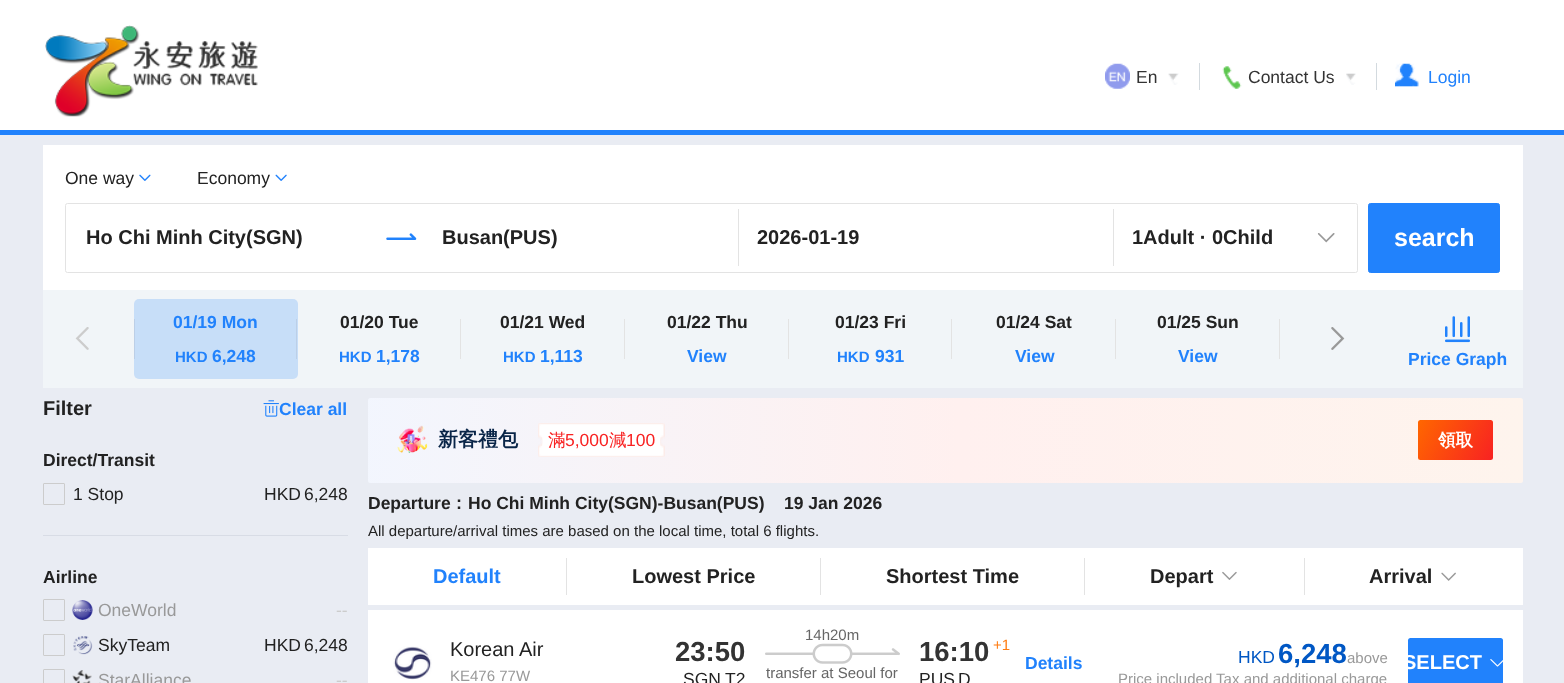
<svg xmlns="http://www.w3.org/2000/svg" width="1564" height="683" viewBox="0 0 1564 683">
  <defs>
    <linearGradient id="g1" gradientUnits="userSpaceOnUse" x1="1523" y1="440" x2="347" y2="440"><stop offset="0" stop-color="#fef4ed"/><stop offset="0.48" stop-color="#fff0ef"/><stop offset="1" stop-color="#f2f6fe"/></linearGradient>
    <linearGradient id="g2" gradientUnits="userSpaceOnUse" x1="1493" y1="460" x2="1417" y2="420"><stop offset="0" stop-color="#f82222"/><stop offset="0.98" stop-color="#ff6600"/></linearGradient>
  </defs>
  <rect width="100%" height="100%" fill="#e9ecf3"/>
  <rect x="0" y="0" width="1564" height="130" fill="#ffffff"/>
  <rect x="0" y="130" width="1564" height="5" fill="#2182fc"/>
  <image x="45" y="25" width="213" height="92" href="img1.png"/>
  <rect x="1199" y="63" width="1" height="27" fill="#d3dadf"/>
  <image x="1105" y="63" width="25" height="26" href="img2.png"/>
  <text x="1136" y="83" font-family="Liberation Sans" font-size="17.5" fill="#333333">En</text>
  <image x="1168" y="73" width="11" height="12" href="img3.png"/>
  <rect x="1376" y="63" width="1" height="27" fill="#d3dadf"/>
  <image x="1222" y="66" width="20" height="23" href="img4.png"/>
  <text x="1248" y="83" font-family="Liberation Sans" font-size="17.5" fill="#333333">Contact Us</text>
  <image x="1346" y="73" width="10" height="12" href="img5.png"/>
  <image x="1395" y="63" width="24" height="24" href="img6.png"/>
  <text x="1428" y="83" font-family="Liberation Sans" font-size="17.5" fill="#2182fc">Login</text>
  <rect x="43" y="145" width="1480" height="145" fill="#ffffff"/>
  <text x="65" y="184" font-family="Liberation Sans" font-size="17.5" fill="#222222">One way</text>
  <image x="139" y="174" width="12" height="7" href="img7.png"/>
  <text x="197" y="184" font-family="Liberation Sans" font-size="17.5" fill="#222222">Economy</text>
  <image x="275" y="174" width="12" height="7" href="img8.png"/>
  <rect x="65.5" y="203.5" width="1292" height="69" rx="2" fill="none" stroke="#e3e3e3"/>
  <text x="86" y="244" font-family="Liberation Sans" font-size="20" font-weight="bold" fill="#222222">Ho Chi Minh City(SGN)</text>
  <image x="386" y="233" width="31" height="7" href="img9.png"/>
  <text x="442" y="244" font-family="Liberation Sans" font-size="20" font-weight="bold" fill="#222222">Busan(PUS)</text>
  <rect x="738" y="209" width="1" height="57" fill="#e3e3e3"/>
  <text x="757" y="244" font-family="Liberation Sans" font-size="20" font-weight="bold" fill="#222222">2026-01-19</text>
  <rect x="1113" y="209" width="1" height="57" fill="#e3e3e3"/>
  <text x="1132" y="244" font-family="Liberation Sans" font-size="20" font-weight="bold" fill="#222222">1Adult · 0Child</text>
  <image x="1317" y="233" width="18" height="10" href="img10.png"/>
  <rect x="1368.5" y="203.5" width="131" height="69" rx="2" fill="#2182fc" stroke="#2182fc"/>
  <text x="1394" y="246" font-family="Liberation Sans" font-size="25" font-weight="bold" fill="#ffffff">search</text>
  <rect x="43" y="290" width="1480" height="98" fill="#f1f5f8"/>
  <image x="75" y="327" width="14" height="23" href="img11.png"/>
  <rect x="134" y="319" width="1" height="40" fill="#e3e3e3"/>
  <rect x="296" y="319" width="1" height="40" fill="#e3e3e3"/>
  <rect x="134" y="299" width="164" height="80" rx="5" fill="#2182fc" fill-opacity="0.2"/>
  <text x="173" y="328" font-family="Liberation Sans" font-size="17.5" font-weight="bold" fill="#2182fc">01/19 Mon</text>
  <text x="175" y="362" font-family="Liberation Sans" font-size="15" font-weight="bold" fill="#2182fc">HKD</text>
  <text x="212" y="362" font-family="Liberation Sans" font-size="17.5" font-weight="bold" fill="#2182fc">6,248</text>
  <text x="340" y="328" font-family="Liberation Sans" font-size="17.5" font-weight="bold" fill="#222222">01/20 Tue</text>
  <text x="339" y="362" font-family="Liberation Sans" font-size="15" font-weight="bold" fill="#2182fc">HKD</text>
  <text x="376" y="362" font-family="Liberation Sans" font-size="17.5" font-weight="bold" fill="#2182fc">1,178</text>
  <rect x="460" y="319" width="1" height="40" fill="#e3e3e3"/>
  <text x="500" y="328" font-family="Liberation Sans" font-size="17.5" font-weight="bold" fill="#222222">01/21 Wed</text>
  <text x="503" y="362" font-family="Liberation Sans" font-size="15" font-weight="bold" fill="#2182fc">HKD</text>
  <text x="540" y="362" font-family="Liberation Sans" font-size="17.5" font-weight="bold" fill="#2182fc">1,113</text>
  <rect x="624" y="319" width="1" height="40" fill="#e3e3e3"/>
  <text x="667" y="328" font-family="Liberation Sans" font-size="17.5" font-weight="bold" fill="#222222">01/22 Thu</text>
  <text x="687" y="362" font-family="Liberation Sans" font-size="17.5" font-weight="bold" fill="#2182fc">View</text>
  <rect x="788" y="319" width="1" height="40" fill="#e3e3e3"/>
  <text x="835" y="328" font-family="Liberation Sans" font-size="17.5" font-weight="bold" fill="#222222">01/23 Fri</text>
  <text x="837" y="362" font-family="Liberation Sans" font-size="15" font-weight="bold" fill="#2182fc">HKD</text>
  <text x="875" y="362" font-family="Liberation Sans" font-size="17.5" font-weight="bold" fill="#2182fc">931</text>
  <rect x="951" y="319" width="1" height="40" fill="#e3e3e3"/>
  <text x="996" y="328" font-family="Liberation Sans" font-size="17.5" font-weight="bold" fill="#222222">01/24 Sat</text>
  <text x="1015" y="362" font-family="Liberation Sans" font-size="17.5" font-weight="bold" fill="#2182fc">View</text>
  <rect x="1115" y="319" width="1" height="40" fill="#e3e3e3"/>
  <text x="1157" y="328" font-family="Liberation Sans" font-size="17.5" font-weight="bold" fill="#222222">01/25 Sun</text>
  <text x="1178" y="362" font-family="Liberation Sans" font-size="17.5" font-weight="bold" fill="#2182fc">View</text>
  <rect x="1279" y="319" width="1" height="40" fill="#e3e3e3"/>
  <image x="1331" y="327" width="14" height="23" href="img12.png"/>
  <image x="1445" y="316" width="25" height="27" href="img13.png"/>
  <text x="1408" y="365" font-family="Liberation Sans" font-size="17.5" font-weight="bold" fill="#2182fc">Price Graph</text>
  <text x="43" y="415" font-family="Liberation Sans" font-size="20" font-weight="bold" fill="#222222">Filter</text>
  <image x="263" y="400" width="16" height="17" href="img14.png"/>
  <text x="279" y="415" font-family="Liberation Sans" font-size="17.5" font-weight="bold" fill="#2182fc">Clear all</text>
  <rect x="43" y="535" width="305" height="1" fill="#d8dce5"/>
  <text x="43" y="466" font-family="Liberation Sans" font-size="17.5" font-weight="bold" fill="#222222">Direct/Transit</text>
  <rect x="43.5" y="483.5" width="21" height="21" rx="0.5" fill="none" stroke="#cccccc"/>
  <text x="73" y="500" font-family="Liberation Sans" font-size="17.5" fill="#222222">1 Stop</text>
  <text x="264" y="500" font-family="Liberation Sans" font-size="17.5" fill="#222222">HKD</text>
  <text x="304" y="500" font-family="Liberation Sans" font-size="17.5" fill="#222222">6,248</text>
  <text x="43" y="583" font-family="Liberation Sans" font-size="17.5" font-weight="bold" fill="#222222">Airline</text>
  <rect x="43.5" y="599.5" width="21" height="21" rx="0.5" fill="none" stroke="#cccccc"/>
  <image x="72" y="600" width="21" height="20" href="img15.png"/>
  <text x="98" y="616" font-family="Liberation Sans" font-size="17.5" fill="#999999">OneWorld</text>
  <text x="336" y="616" font-family="Liberation Sans" font-size="17.5" fill="#cccccc">--</text>
  <rect x="43.5" y="634.5" width="21" height="21" rx="0.5" fill="none" stroke="#cccccc"/>
  <image x="73" y="636" width="20" height="19" href="img16.png"/>
  <text x="98" y="651" font-family="Liberation Sans" font-size="17.5" fill="#222222">SkyTeam</text>
  <text x="264" y="651" font-family="Liberation Sans" font-size="17.5" fill="#222222">HKD</text>
  <text x="304" y="651" font-family="Liberation Sans" font-size="17.5" fill="#222222">6,248</text>
  <rect x="43.5" y="669.5" width="21" height="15" rx="0.5" fill="none" stroke="#cccccc"/>
  <image x="72" y="670" width="20" height="13" href="img17.png"/>
  <text x="98" y="686" font-family="Liberation Sans" font-size="17.5" fill="#999999">StarAlliance</text>
  <text x="336" y="686" font-family="Liberation Sans" font-size="17.5" fill="#cccccc">--</text>
  <rect x="368" y="398" width="1155" height="85" rx="2.5" fill="url(#g1)"/>
  <image x="397" y="425" width="31" height="28" href="img18.png"/>
  <text x="438" y="446" font-family="WenQuanYi Zen Hei" font-size="20" font-weight="bold" fill="#092548">新客禮包</text>
  <image x="538" y="423" width="127" height="34" href="img19.png"/>
  <image x="542" y="423" width="118" height="34" href="img20.png"/>
  <text x="548" y="446" font-family="WenQuanYi Zen Hei" font-size="17.5" font-weight="500" fill="#f82222">滿</text>
  <text x="565" y="446" font-family="Liberation Sans" font-size="17.5" fill="#f82222">5,000</text>
  <text x="609" y="446" font-family="WenQuanYi Zen Hei" font-size="17.5" font-weight="500" fill="#f82222">減</text>
  <text x="626" y="446" font-family="Liberation Sans" font-size="17.5" fill="#f82222">100</text>
  <rect x="1418" y="420" width="75" height="40" rx="2.5" fill="url(#g2)"/>
  <text x="1438" y="446" font-family="WenQuanYi Zen Hei" font-size="17.5" font-weight="bold" fill="#ffffff">領取</text>
  <text x="368" y="509" font-family="Liberation Sans" font-size="17.5" font-weight="bold" fill="#222222">Departure</text>
  <text x="450" y="509" font-family="WenQuanYi Zen Hei" font-size="17.5" font-weight="bold" fill="#222222">：</text>
  <text x="468" y="509" font-family="Liberation Sans" font-size="17.5" font-weight="bold" fill="#222222">Ho Chi Minh City(SGN)-Busan(PUS)</text>
  <text x="784" y="509" font-family="Liberation Sans" font-size="17.5" font-weight="bold" fill="#222222">19 Jan 2026</text>
  <text x="368" y="536" font-family="Liberation Sans" font-size="15" fill="#222222">All departure/arrival times are based on the local time, total 6 flights.</text>
  <rect x="368" y="548" width="1155" height="57" fill="#ffffff"/>
  <text x="433" y="583" font-family="Liberation Sans" font-size="20" font-weight="bold" fill="#2182fc">Default</text>
  <rect x="566" y="558" width="1" height="37" fill="#e3e3e3"/>
  <text x="632" y="583" font-family="Liberation Sans" font-size="20" font-weight="bold" fill="#222222">Lowest Price</text>
  <rect x="820" y="558" width="1" height="37" fill="#e3e3e3"/>
  <text x="886" y="583" font-family="Liberation Sans" font-size="20" font-weight="bold" fill="#222222">Shortest Time</text>
  <rect x="1084" y="558" width="1" height="37" fill="#e3e3e3"/>
  <text x="1150" y="583" font-family="Liberation Sans" font-size="20" font-weight="bold" fill="#222222">Depart</text>
  <image x="1222" y="571" width="15" height="9" href="img21.png"/>
  <rect x="1304" y="558" width="1" height="37" fill="#e3e3e3"/>
  <text x="1369" y="583" font-family="Liberation Sans" font-size="20" font-weight="bold" fill="#222222">Arrival</text>
  <image x="1441" y="572" width="15" height="9" href="img22.png"/>
  <rect x="368" y="610" width="1155" height="73" fill="#ffffff"/>
  <image x="393" y="646" width="39" height="34" href="img23.png"/>
  <text x="450" y="656" font-family="Liberation Sans" font-size="20" fill="#222222">Korean Air</text>
  <text x="450" y="681" font-family="Liberation Sans" font-size="15" fill="#999999">KE476 77W</text>
  <text x="675" y="661" font-family="Liberation Sans" font-size="27.5" font-weight="bold" fill="#333333">23:50</text>
  <text x="683" y="685" font-family="Liberation Sans" font-size="17.5" fill="#222222">SGN</text>
  <text x="725" y="685" font-family="Liberation Sans" font-size="17.5" fill="#222222">T2</text>
  <text x="805" y="640" font-family="Liberation Sans" font-size="15" fill="#666666">14h20m</text>
  <image x="765" y="643" width="135" height="21" href="img24.png"/>
  <text x="766" y="678" font-family="Liberation Sans" font-size="15" fill="#666666">transfer at Seoul for</text>
  <text x="919" y="661" font-family="Liberation Sans" font-size="27.5" font-weight="bold" fill="#333333">16:10</text>
  <text x="993" y="650" font-family="Liberation Sans" font-size="15" fill="#ff7d13">+1</text>
  <text x="919" y="685" font-family="Liberation Sans" font-size="17.5" fill="#222222">PUS</text>
  <text x="958" y="685" font-family="Liberation Sans" font-size="17.5" fill="#222222">D</text>
  <text x="1025" y="669" font-family="Liberation Sans" font-size="17.5" font-weight="bold" fill="#2182fc">Details</text>
  <text x="1238" y="663" font-family="Liberation Sans" font-size="17.5" fill="#0057c4">HKD</text>
  <text x="1278" y="663" font-family="Liberation Sans" font-size="27.5" font-weight="bold" fill="#0057c4">6,248</text>
  <text x="1347" y="663" font-family="Liberation Sans" font-size="15" fill="#999999">above</text>
  <text x="1118" y="684" font-family="Liberation Sans" font-size="15" fill="#999999">Price included Tax and additional charge</text>
  <rect x="1408" y="638" width="95" height="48" rx="2.5" fill="#2182fc"/>
  <text x="1403" y="669" font-family="Liberation Sans" font-size="20" font-weight="bold" fill="#ffffff">SELECT</text>
  <image x="1490" y="659" width="13" height="8" href="img25.png"/>
</svg>
